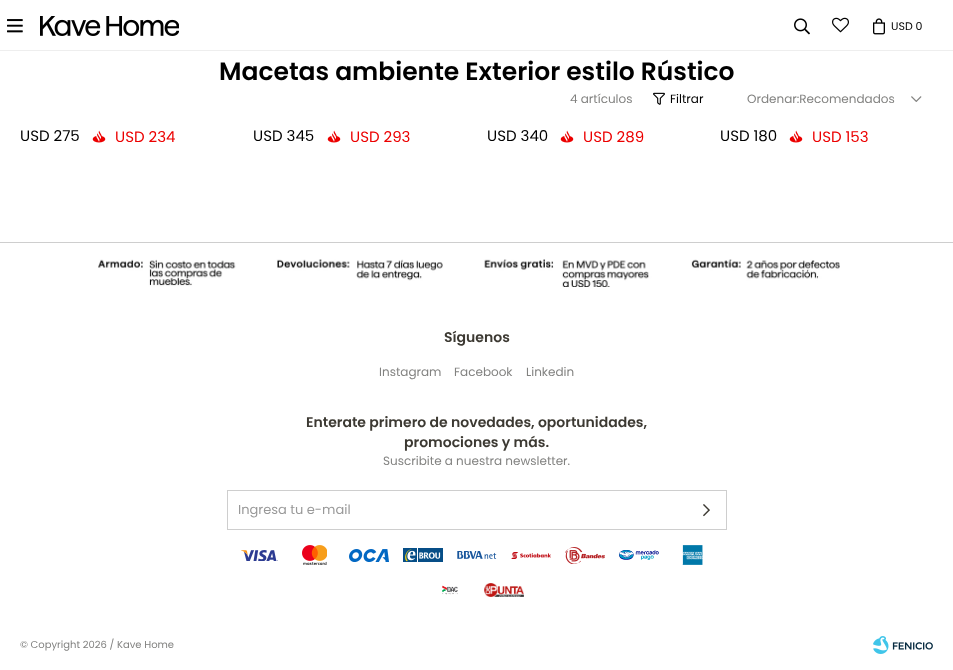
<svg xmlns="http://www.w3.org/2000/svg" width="953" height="670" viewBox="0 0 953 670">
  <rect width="100%" height="100%" fill="#ffffff"/>
  <image x="7" y="19" width="16" height="14" href="img1.png"/>
  <image x="40" y="16" width="139" height="20" href="img2.png"/>
  <image x="794" y="18" width="16" height="17" href="img3.png"/>
  <image x="832" y="17" width="17" height="16" href="img4.png"/>
  <image x="873" y="18" width="12" height="17" href="img5.png"/>
  <text x="891" y="30" font-family="Poppins" font-size="11" fill="#000000">USD 0</text>
  <rect x="0" y="50" width="953" height="1" fill="#eeeeee"/>
  <text x="219" y="80" font-family="Poppins" font-size="25" font-weight="600" fill="#000000">Macetas ambiente Exterior estilo Rústico</text>
  <text x="570" y="103" font-family="Poppins" font-size="12" fill="#828280">4 artículos</text>
  <image x="653" y="92" width="12" height="13" href="img6.png"/>
  <text x="670" y="103" font-family="Poppins" font-size="12" fill="#000000">Filtrar</text>
  <text x="747" y="103" font-family="Poppins" font-size="12" fill="#828280">Ordenar:Recomendados</text>
  <image x="911" y="96" width="11" height="6" href="img7.png"/>
  <text x="20" y="141" font-family="Poppins" font-size="15" fill="#000000">USD 275</text>
  <image x="92" y="130" width="14" height="13" href="img8.png"/>
  <text x="115" y="142" font-family="Poppins" font-size="15" fill="#ec0000">USD 234</text>
  <text x="253" y="141" font-family="Poppins" font-size="15" fill="#000000">USD 345</text>
  <image x="327" y="130" width="14" height="13" href="img8.png"/>
  <text x="350" y="142" font-family="Poppins" font-size="15" fill="#ec0000">USD 293</text>
  <text x="487" y="141" font-family="Poppins" font-size="15" fill="#000000">USD 340</text>
  <image x="560" y="130" width="14" height="13" href="img8.png"/>
  <text x="583" y="142" font-family="Poppins" font-size="15" fill="#ec0000">USD 289</text>
  <text x="720" y="141" font-family="Poppins" font-size="15" fill="#000000">USD 180</text>
  <image x="789" y="130" width="14" height="13" href="img8.png"/>
  <text x="812" y="142" font-family="Poppins" font-size="15" fill="#ec0000">USD 153</text>
  <rect x="0" y="242" width="953" height="1" fill="#cecece"/>
  <image x="98" y="259" width="742" height="28" href="img9.png"/>
  <text x="444" y="342" font-family="Poppins" font-size="14" font-weight="600" fill="#3c3932">Síguenos</text>
  <text x="379" y="376" font-family="Poppins" font-size="12" fill="#828280">Instagram</text>
  <text x="454" y="376" font-family="Poppins" font-size="12" fill="#828280">Facebook</text>
  <text x="526" y="376" font-family="Poppins" font-size="12" fill="#828280">Linkedin</text>
  <text x="306" y="427" font-family="Poppins" font-size="14" font-weight="600" fill="#3c3932">Enterate primero de novedades, oportunidades,</text>
  <text x="404" y="447" font-family="Poppins" font-size="14" font-weight="600" fill="#3c3932">promociones y más.</text>
  <text x="383" y="465" font-family="Poppins" font-size="12" fill="#828280">Suscribite a nuestra newsletter.</text>
  <rect x="227.5" y="490.5" width="499" height="39" fill="none" stroke="#cecece"/>
  <text x="238" y="514" font-family="Poppins" font-size="13" fill="#999999">Ingresa tu e-mail</text>
  <image x="703" y="504" width="7" height="13" href="img10.png"/>
  <image x="241" y="550" width="37" height="11" href="img11.png"/>
  <image x="302" y="545" width="25" height="20" href="img12.png"/>
  <image x="349" y="549" width="40" height="13" href="img13.png"/>
  <image x="403" y="548" width="40" height="14" href="img14.png"/>
  <image x="457" y="551" width="40" height="8" href="img15.png"/>
  <image x="511" y="552" width="40" height="7" href="img16.png"/>
  <image x="565" y="547" width="40" height="17" href="img17.png"/>
  <image x="619" y="550" width="40" height="10" href="img18.png"/>
  <image x="682" y="545" width="21" height="20" href="img19.png"/>
  <image x="442" y="585" width="16" height="10" href="img20.png"/>
  <image x="484" y="583" width="40" height="14" href="img21.png"/>
  <text x="20" y="648" font-family="Poppins" font-size="10" fill="#828280">© Copyright 2026 / Kave Home</text>
  <image x="873" y="636" width="60" height="18" href="img22.png"/>
</svg>
